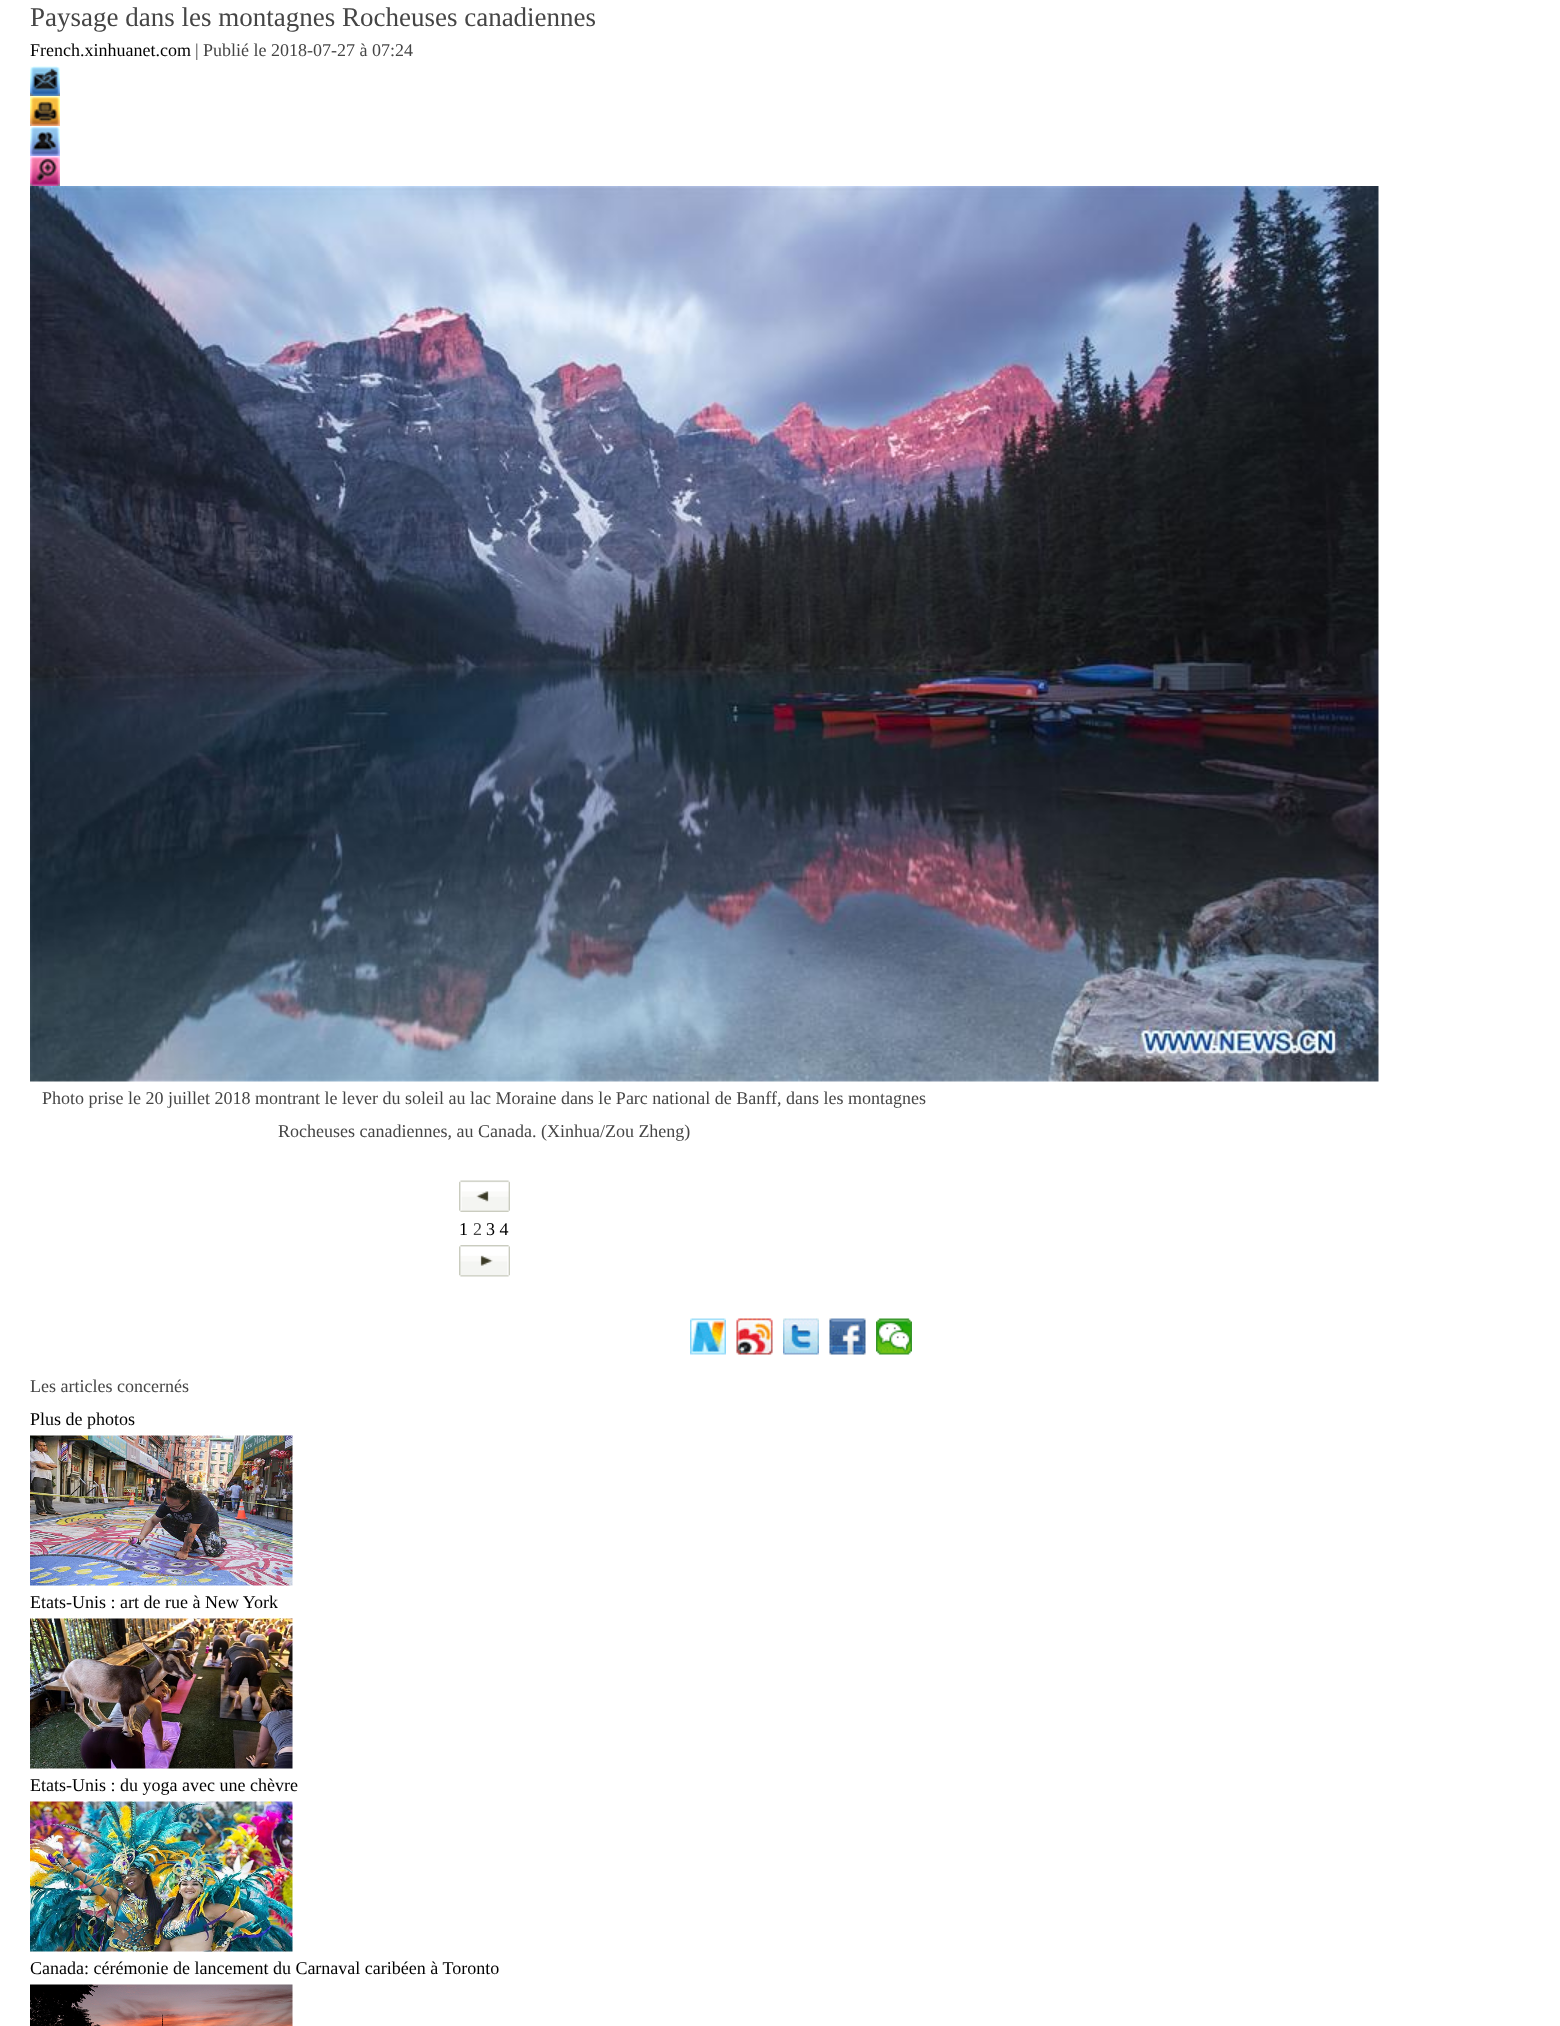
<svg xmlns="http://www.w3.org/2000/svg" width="1560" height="2026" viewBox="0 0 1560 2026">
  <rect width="100%" height="100%" fill="#ffffff"/>
  <text x="30" y="26" font-family="Liberation Serif" font-size="27" fill="#454545">Paysage dans les montagnes Rocheuses canadiennes</text>
  <text x="30" y="56" font-family="Liberation Serif" font-size="18" fill="#000000">French.xinhuanet.com</text>
  <text x="195" y="56" font-family="Liberation Serif" font-size="18" fill="#454545">| Publié le 2018-07-27 à 07:24</text>
  <image x="30" y="66" width="30" height="30" href="img1.png"/>
  <image x="30" y="96" width="30" height="30" href="img2.png"/>
  <image x="30" y="126" width="30" height="30" href="img3.png"/>
  <image x="30" y="156" width="30" height="30" href="img4.png"/>
  <image x="30" y="186" width="1349" height="896" href="img5.png"/>
  <text x="42" y="1104" font-family="Liberation Serif" font-size="18" fill="#454545">Photo prise le 20 juillet 2018 montrant le lever du soleil au lac Moraine dans le Parc national de Banff, dans les montagnes</text>
  <text x="278" y="1137" font-family="Liberation Serif" font-size="18" fill="#454545">Rocheuses canadiennes, au Canada. (Xinhua/Zou Zheng)</text>
  <image x="459" y="1180" width="51" height="32" href="img6.png"/>
  <text x="459" y="1235" font-family="Liberation Serif" font-size="18" fill="#000000">1</text>
  <text x="473" y="1235" font-family="Liberation Serif" font-size="18" fill="#454545">2</text>
  <text x="486" y="1235" font-family="Liberation Serif" font-size="18" fill="#000000">3 4</text>
  <image x="459" y="1245" width="51" height="32" href="img7.png"/>
  <image x="690" y="1318" width="36" height="37" href="img8.png"/>
  <image x="736" y="1318" width="37" height="37" href="img9.png"/>
  <image x="783" y="1318" width="36" height="37" href="img10.png"/>
  <image x="829" y="1318" width="37" height="37" href="img11.png"/>
  <image x="876" y="1318" width="36" height="37" href="img12.png"/>
  <text x="30" y="1392" font-family="Liberation Serif" font-size="18" fill="#454545">Les articles concernés</text>
  <text x="30" y="1425" font-family="Liberation Serif" font-size="18" fill="#000000">Plus de photos</text>
  <image x="30" y="1435" width="263" height="151" href="img13.png"/>
  <text x="30" y="1608" font-family="Liberation Serif" font-size="18" fill="#000000">Etats-Unis : art de rue à New York</text>
  <image x="30" y="1618" width="263" height="151" href="img14.png"/>
  <text x="30" y="1791" font-family="Liberation Serif" font-size="18" fill="#000000">Etats-Unis : du yoga avec une chèvre</text>
  <image x="30" y="1801" width="263" height="151" href="img15.png"/>
  <text x="30" y="1974" font-family="Liberation Serif" font-size="18" fill="#000000">Canada: cérémonie de lancement du Carnaval caribéen à Toronto</text>
  <image x="30" y="1984" width="263" height="42" href="img16.png"/>
</svg>
